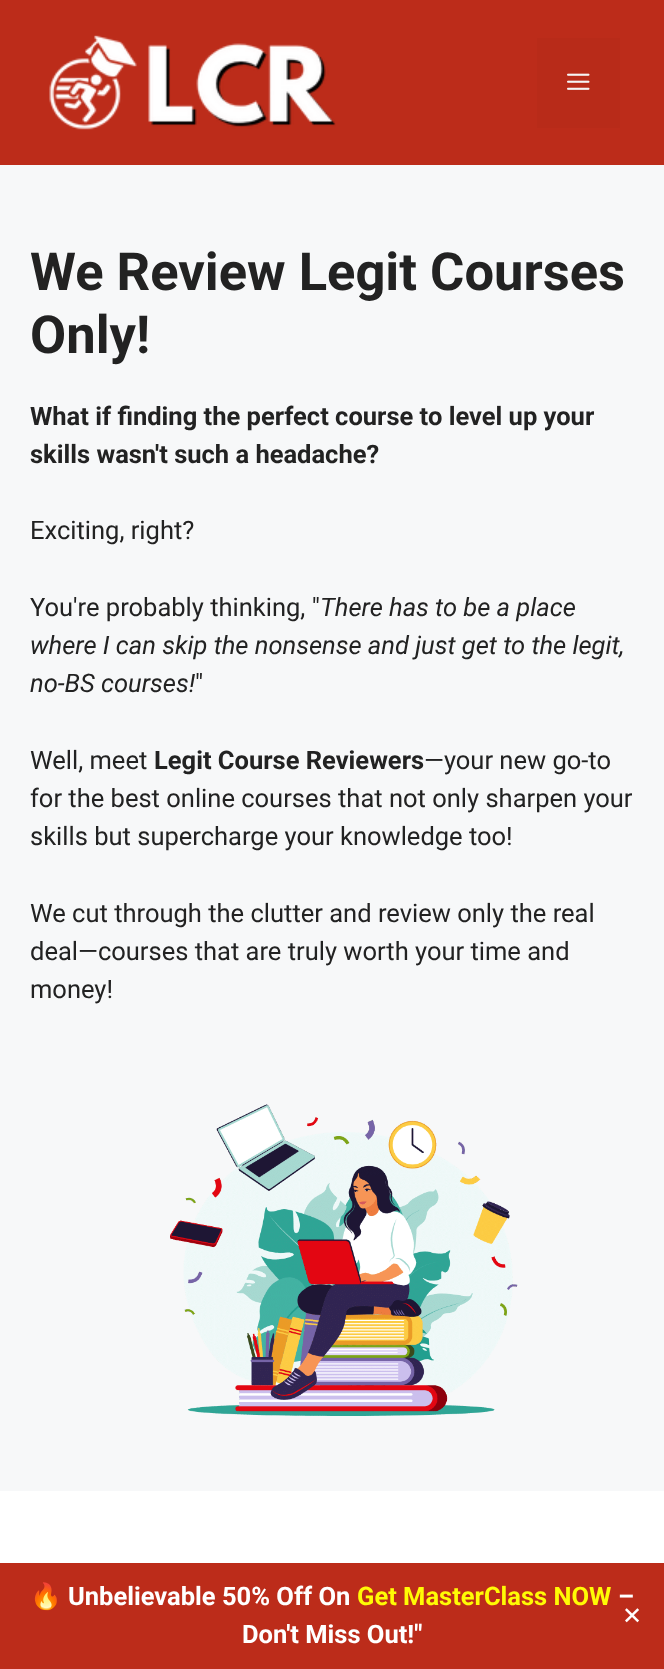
<svg xmlns="http://www.w3.org/2000/svg" width="664" height="1669" viewBox="0 0 664 1669">
  <rect width="100%" height="100%" fill="#f7f8f9"/>
  <rect x="0" y="0" width="664" height="165" fill="#bc2c1a"/>
  <image x="49" y="35" width="287" height="95" href="img1.png"/>
  <rect x="537" y="38" width="83" height="90" fill="#b82b19"/>
  <image x="567" y="73" width="23" height="17" href="img2.png"/>
  <text x="30" y="290" font-family="Roboto" font-size="52.5" font-weight="bold" fill="#222222">We Review Legit Courses</text>
  <text x="30" y="353" font-family="Roboto" font-size="52.5" font-weight="bold" fill="#222222">Only!</text>
  <text x="30" y="425" font-family="Roboto" font-size="25.5" font-weight="bold" fill="#222222">What if finding the perfect course to level up your</text>
  <text x="30" y="463" font-family="Roboto" font-size="25.5" font-weight="bold" fill="#222222">skills wasn't such a headache?</text>
  <text x="30" y="539" font-family="Roboto" font-size="25.5" fill="#222222">Exciting, right?</text>
  <text x="30" y="616" font-family="Roboto" font-size="25.5" fill="#222222">You're probably thinking, "</text>
  <text x="320" y="616" font-family="Roboto" font-size="25.5" font-style="italic" fill="#222222">There has to be a place</text>
  <text x="30" y="654" font-family="Roboto" font-size="25.5" font-style="italic" fill="#222222">where I can skip the nonsense and just get to the legit,</text>
  <text x="30" y="692" font-family="Roboto" font-size="25.5" font-style="italic" fill="#222222">no-BS courses!</text>
  <text x="195" y="692" font-family="Roboto" font-size="25.5" fill="#222222">"</text>
  <text x="30" y="769" font-family="Roboto" font-size="25.5" fill="#222222">Well, meet</text>
  <text x="154" y="769" font-family="Roboto" font-size="25.5" font-weight="bold" fill="#222222">Legit Course Reviewers</text>
  <text x="424" y="769" font-family="Roboto" font-size="25.5" fill="#222222">—your new go-to</text>
  <text x="30" y="807" font-family="Roboto" font-size="25.5" fill="#222222">for the best online courses that not only sharpen your</text>
  <text x="30" y="845" font-family="Roboto" font-size="25.5" fill="#222222">skills but supercharge your knowledge too!</text>
  <text x="30" y="922" font-family="Roboto" font-size="25.5" fill="#222222">We cut through the clutter and review only the real</text>
  <text x="30" y="960" font-family="Roboto" font-size="25.5" fill="#222222">deal—courses that are truly worth your time and</text>
  <text x="30" y="998" font-family="Roboto" font-size="25.5" fill="#222222">money!</text>
  <image x="170" y="1104" width="348" height="312" href="img3.png"/>
  <rect x="0" y="1491" width="664" height="72" fill="#ffffff"/>
  <rect x="0" y="1563" width="664" height="106" fill="#bc2c1a"/>
  <text x="30" y="1605" font-family="Noto Color Emoji" font-size="25.5" font-weight="bold" fill="#ffffff">🔥</text>
  <text x="68" y="1605" font-family="Roboto" font-size="25.5" font-weight="bold" fill="#ffffff">Unbelievable 50% Off On</text>
  <text x="357" y="1605" font-family="Roboto" font-size="25.5" font-weight="bold" fill="#fffb05">Get MasterClass NOW</text>
  <text x="618" y="1605" font-family="Roboto" font-size="25.5" font-weight="bold" fill="#ffffff">–</text>
  <text x="242" y="1643" font-family="Roboto" font-size="25.5" font-weight="bold" fill="#ffffff">Don't Miss Out!"</text>
  <text x="622" y="1624" font-family="DejaVu Sans" font-size="24" fill="#ffffff">✕</text>
</svg>
